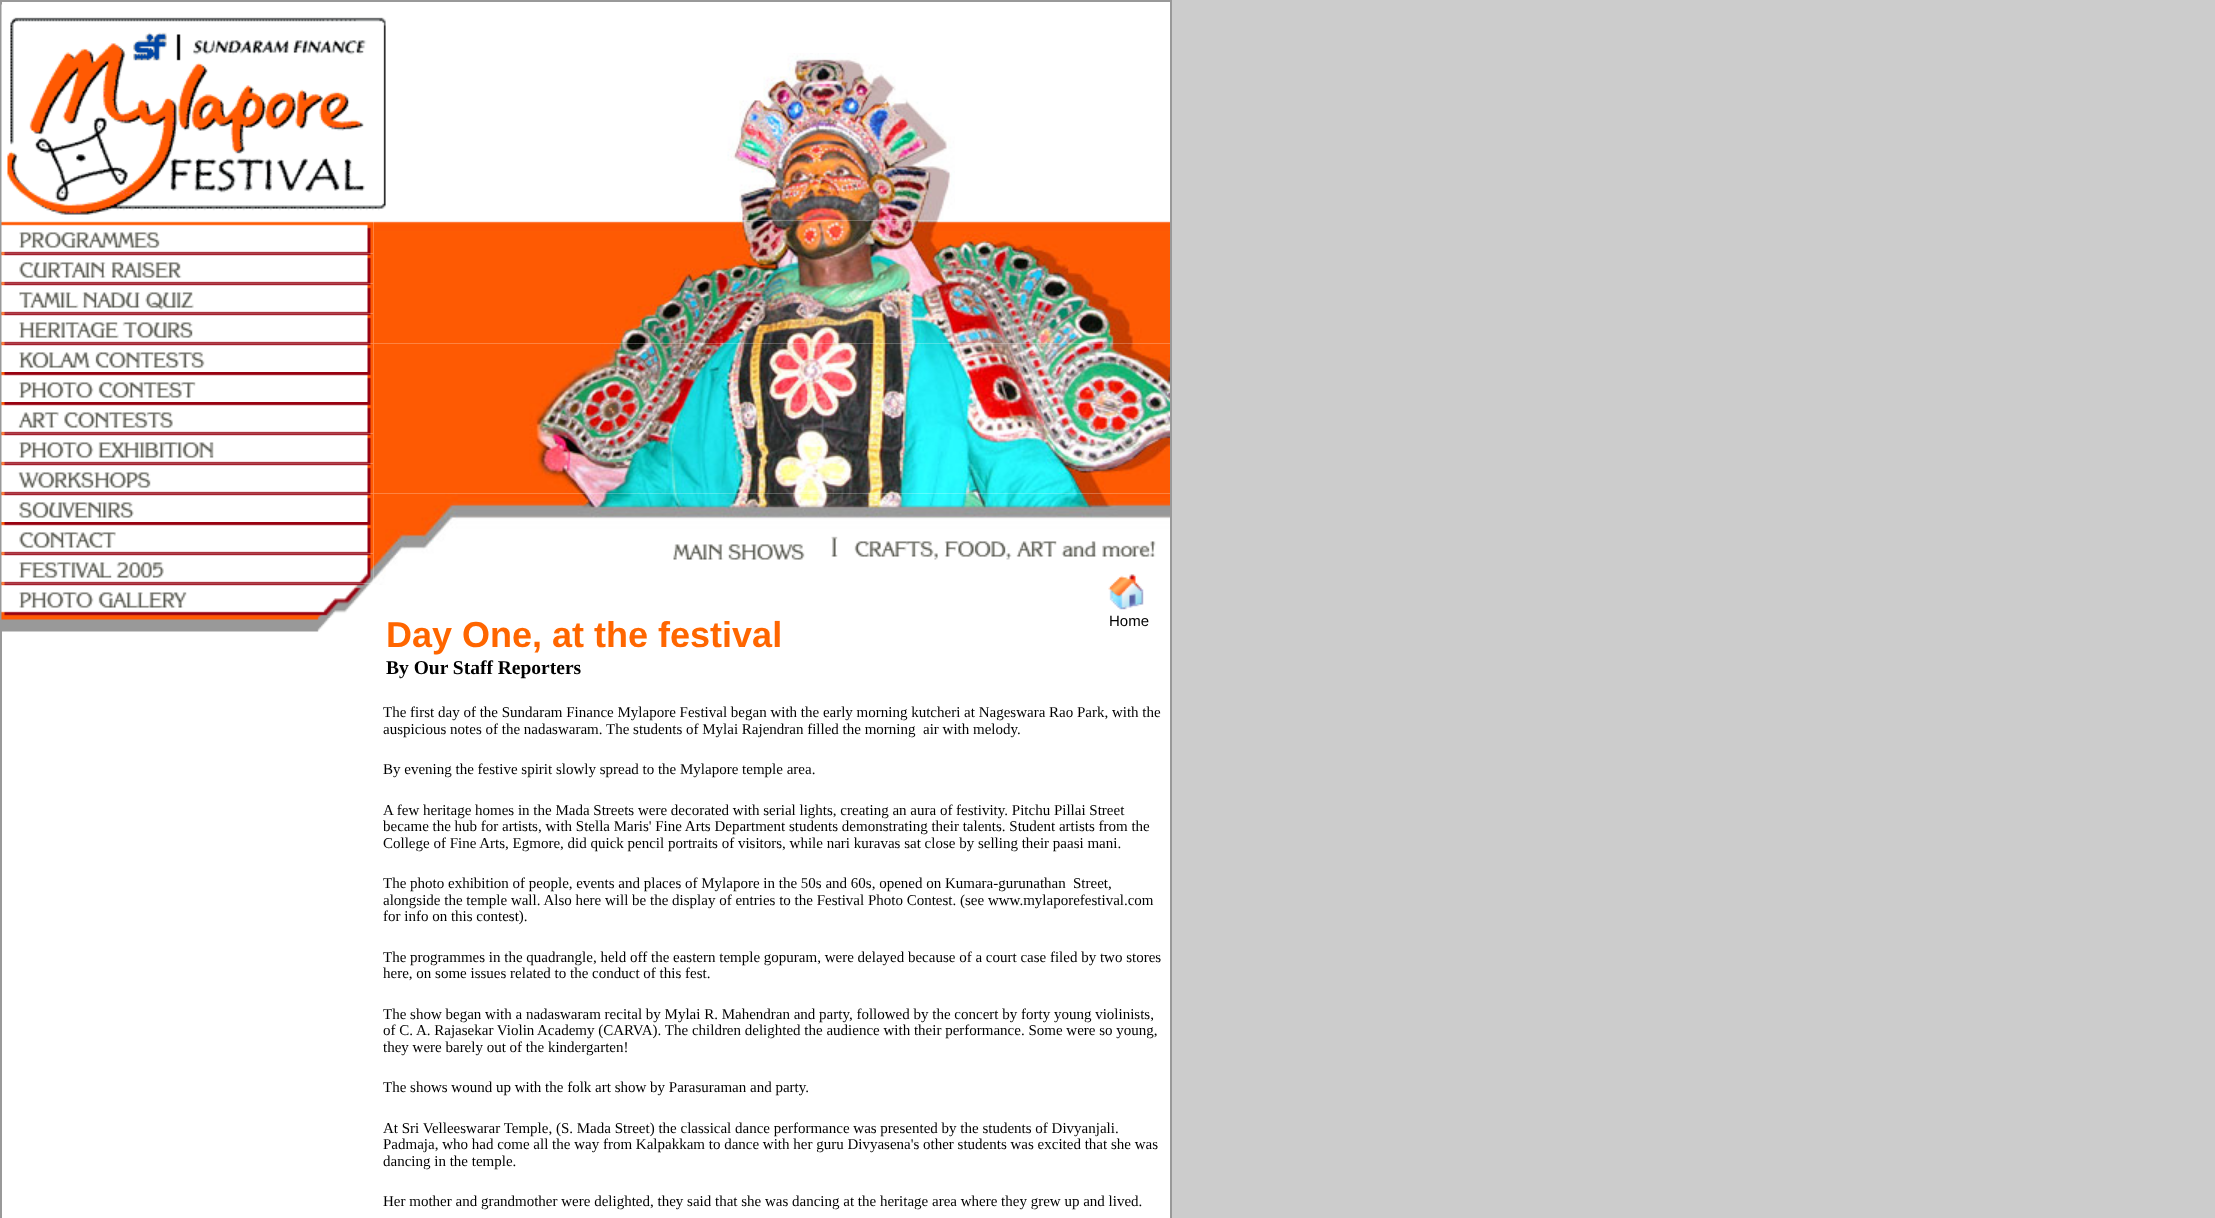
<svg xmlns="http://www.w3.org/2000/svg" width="2215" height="1218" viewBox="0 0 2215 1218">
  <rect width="100%" height="100%" fill="#cccccc"/>
  <rect x="0" y="0" width="1172" height="1218" fill="#999999"/>
  <rect x="2" y="2" width="1168" height="1216" fill="#ffffff"/>
  <image x="1" y="402" width="373" height="32" href="img13.png"/>
  <image x="1" y="433" width="373" height="31" href="img14.png"/>
  <image x="1" y="463" width="373" height="31" href="img15.png"/>
  <image x="1" y="493" width="373" height="29" href="img16.png"/>
  <image x="1" y="522" width="373" height="32" href="img17.png"/>
  <image x="1" y="553" width="373" height="31" href="img18.png"/>
  <image x="1" y="4" width="385" height="217" href="img5.png"/>
  <image x="1" y="220" width="373" height="34" href="img7.png"/>
  <image x="1" y="253" width="373" height="31" href="img8.png"/>
  <image x="1" y="283" width="373" height="31" href="img9.png"/>
  <image x="1" y="313" width="373" height="31" href="img10.png"/>
  <image x="1" y="343" width="373" height="29" href="img11.png"/>
  <image x="1" y="372" width="373" height="30" href="img12.png"/>
  <image x="727" y="53" width="228" height="168" href="img6.png"/>
  <image x="373" y="220" width="797" height="124" href="img21.png"/>
  <image x="373" y="343" width="797" height="151" href="img22.png"/>
  <image x="373" y="493" width="797" height="92" href="img23.png"/>
  <image x="673" y="544" width="132" height="16" href="img1.png"/>
  <image x="831" y="536" width="7" height="21" href="img2.png"/>
  <image x="854" y="541" width="302" height="19" href="img3.png"/>
  <text x="386" y="647" font-family="Liberation Sans" font-size="36" font-weight="bold" fill="#ff6600">Day One, at the festival</text>
  <text x="386" y="674" font-family="Liberation Serif" font-size="19.5" font-weight="bold" fill="#000000">By Our Staff Reporters</text>
  <image x="1108" y="574" width="36" height="36" href="img4.png"/>
  <text x="1109" y="626" font-family="Liberation Sans" font-size="15" fill="#000000">Home</text>
  <image x="1" y="583" width="370" height="35" href="img19.png"/>
  <image x="1" y="618" width="329" height="14" href="img20.png"/>
  <text x="383" y="717" font-family="Liberation Serif" font-size="15" fill="#000000">The first day of the Sundaram Finance Mylapore Festival began with the early morning kutcheri at Nageswara Rao Park, with the</text>
  <text x="383" y="734" font-family="Liberation Serif" font-size="15" fill="#000000">auspicious notes of the nadaswaram. The students of Mylai Rajendran filled the morning</text>
  <text x="923" y="734" font-family="Liberation Serif" font-size="15" fill="#000000">air with melody.</text>
  <text x="383" y="774" font-family="Liberation Serif" font-size="15" fill="#000000">By evening the festive spirit slowly spread to the Mylapore temple area.</text>
  <text x="383" y="815" font-family="Liberation Serif" font-size="15" fill="#000000">A few heritage homes in the Mada Streets were decorated with serial lights, creating an aura of festivity. Pitchu Pillai Street</text>
  <text x="383" y="831" font-family="Liberation Serif" font-size="15" fill="#000000">became the hub for artists, with Stella Maris' Fine Arts Department students demonstrating their talents. Student artists from the</text>
  <text x="383" y="848" font-family="Liberation Serif" font-size="15" fill="#000000">College of Fine Arts, Egmore, did quick pencil portraits of visitors, while nari kuravas sat close by selling their paasi mani.</text>
  <text x="383" y="888" font-family="Liberation Serif" font-size="15" fill="#000000">The photo exhibition of people, events and places of Mylapore in the 50s and 60s, opened on Kumara-gurunathan</text>
  <text x="1073" y="888" font-family="Liberation Serif" font-size="15" fill="#000000">Street,</text>
  <text x="383" y="905" font-family="Liberation Serif" font-size="15" fill="#000000">alongside the temple wall. Also here will be the display of entries to the Festival Photo Contest. (see www.mylaporefestival.com</text>
  <text x="383" y="921" font-family="Liberation Serif" font-size="15" fill="#000000">for info on this contest).</text>
  <text x="383" y="962" font-family="Liberation Serif" font-size="15" fill="#000000">The programmes in the quadrangle, held off the eastern temple gopuram, were delayed because of a court case filed by two stores</text>
  <text x="383" y="978" font-family="Liberation Serif" font-size="15" fill="#000000">here, on some issues related to the conduct of this fest.</text>
  <text x="383" y="1019" font-family="Liberation Serif" font-size="15" fill="#000000">The show began with a nadaswaram recital by Mylai R. Mahendran and party, followed by the concert by forty young violinists,</text>
  <text x="383" y="1035" font-family="Liberation Serif" font-size="15" fill="#000000">of C. A. Rajasekar Violin</text>
  <text x="537" y="1035" font-family="Liberation Serif" font-size="15" fill="#000000">Academy (CARVA). The children delighted the audience with their performance. Some were so young,</text>
  <text x="383" y="1052" font-family="Liberation Serif" font-size="15" fill="#000000">they were barely out of the kindergarten!</text>
  <text x="383" y="1092" font-family="Liberation Serif" font-size="15" fill="#000000">The shows wound up with the folk art show by Parasuraman and party.</text>
  <text x="383" y="1133" font-family="Liberation Serif" font-size="15" fill="#000000">At Sri Velleeswarar Temple, (S. Mada Street) the classical dance performance was presented by the students of Divyanjali.</text>
  <text x="383" y="1149" font-family="Liberation Serif" font-size="15" fill="#000000">Padmaja, who had come all the way from Kalpakkam to dance with her guru Divyasena's other students was excited that she was</text>
  <text x="383" y="1166" font-family="Liberation Serif" font-size="15" fill="#000000">dancing in the temple.</text>
  <text x="383" y="1206" font-family="Liberation Serif" font-size="15" fill="#000000">Her mother and grandmother were delighted, they said that she was dancing at the heritage area where they grew up and lived.</text>
</svg>
